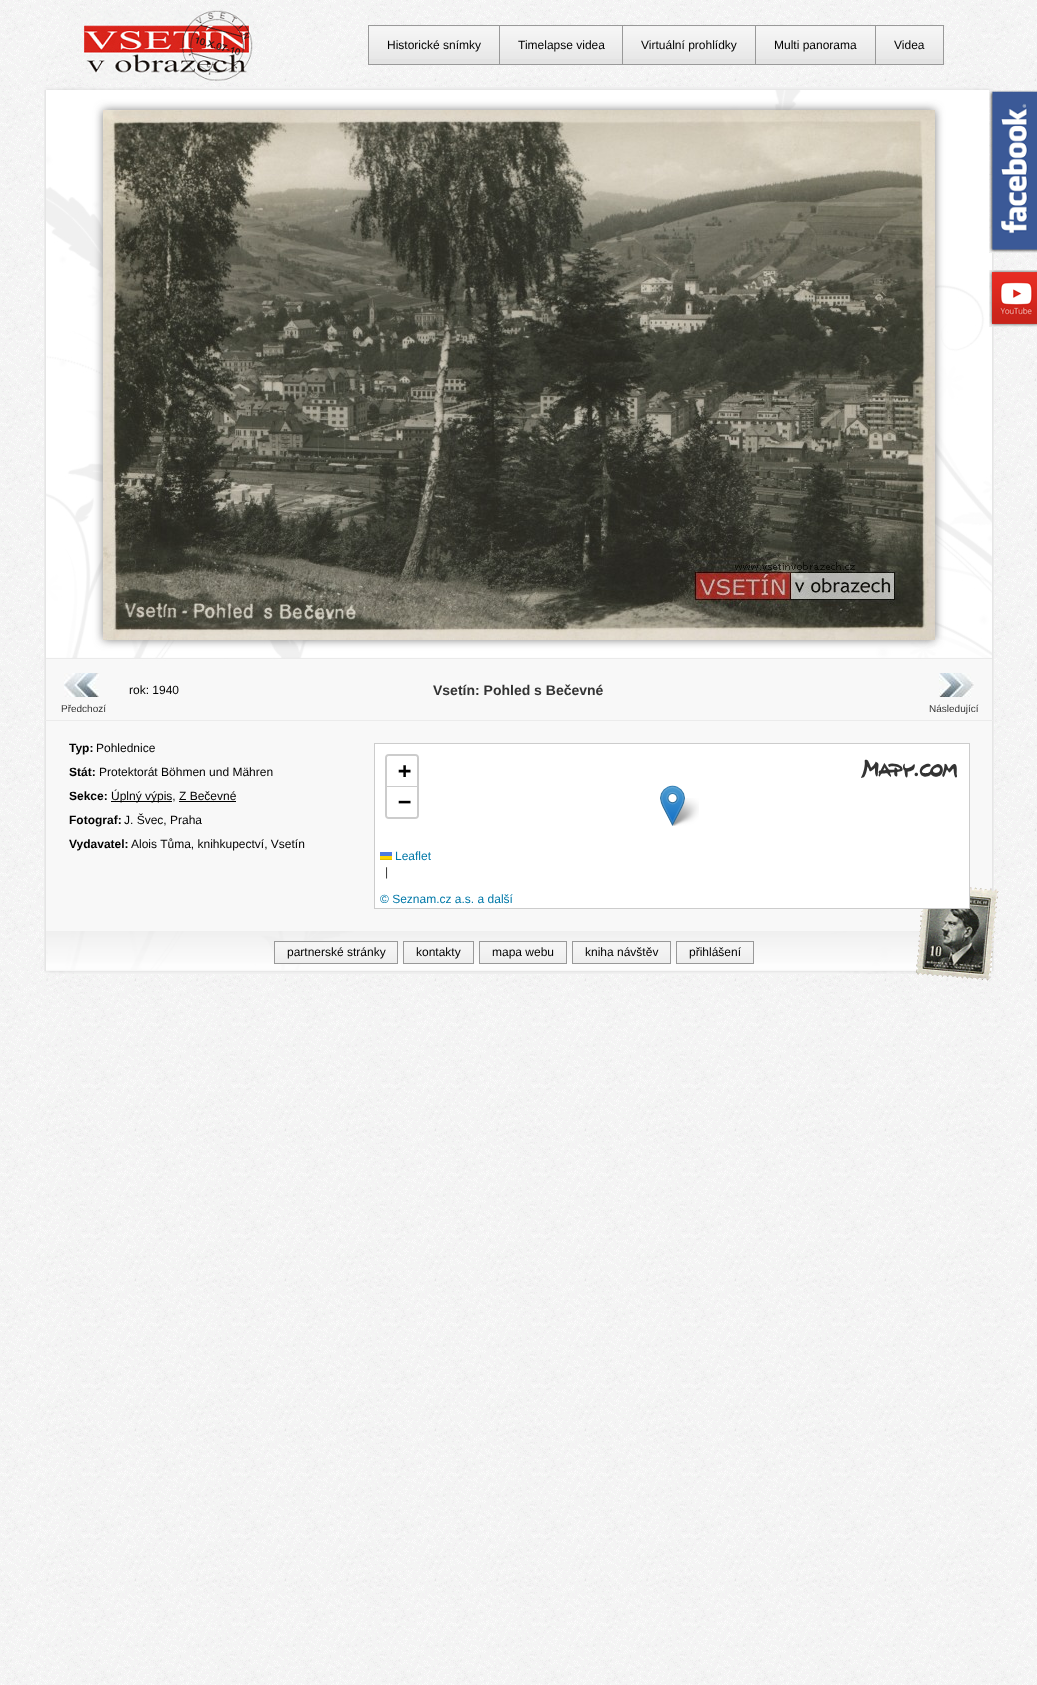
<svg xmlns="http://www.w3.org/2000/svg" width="1037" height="1685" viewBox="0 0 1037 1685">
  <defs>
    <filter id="blur1" x="-50%" y="-200%" width="200%" height="500%"><feGaussianBlur stdDeviation="5"/></filter>
  </defs>
  <rect width="100%" height="100%" fill="#ffffff"/>
  <image x="0" y="0" width="1037" height="1685" href="img1.png"/>
  <image x="44" y="87" width="949" height="3" href="img2.png"/>
  <image x="84" y="10" width="169" height="72" href="img3.png"/>
  <rect x="368" y="25" width="1" height="40" fill="#999999"/>
  <rect x="369" y="25" width="575" height="1" fill="#999999"/>
  <rect x="499" y="25" width="1" height="40" fill="#999999"/>
  <rect x="369" y="64" width="131" height="1" fill="#999999"/>
  <rect x="369" y="59" width="130" height="5" fill="#e3e3e3"/>
  <image x="369" y="26" width="130" height="33" href="img4.png"/>
  <text x="387" y="49" font-family="Liberation Sans" font-size="12" fill="#000000">Historické snímky</text>
  <rect x="622" y="25" width="1" height="40" fill="#999999"/>
  <rect x="500" y="64" width="123" height="1" fill="#999999"/>
  <rect x="500" y="59" width="122" height="5" fill="#e3e3e3"/>
  <image x="500" y="26" width="122" height="33" href="img5.png"/>
  <text x="518" y="49" font-family="Liberation Sans" font-size="12" fill="#000000">Timelapse videa</text>
  <rect x="755" y="25" width="1" height="40" fill="#999999"/>
  <rect x="623" y="64" width="133" height="1" fill="#999999"/>
  <rect x="623" y="59" width="132" height="5" fill="#e3e3e3"/>
  <image x="623" y="26" width="132" height="33" href="img6.png"/>
  <text x="641" y="49" font-family="Liberation Sans" font-size="12" fill="#000000">Virtuální prohlídky</text>
  <rect x="875" y="25" width="1" height="40" fill="#999999"/>
  <rect x="756" y="64" width="120" height="1" fill="#999999"/>
  <rect x="756" y="59" width="119" height="5" fill="#e3e3e3"/>
  <image x="756" y="26" width="119" height="33" href="img7.png"/>
  <text x="774" y="49" font-family="Liberation Sans" font-size="12" fill="#000000">Multi panorama</text>
  <rect x="943" y="25" width="1" height="40" fill="#999999"/>
  <rect x="876" y="64" width="68" height="1" fill="#999999"/>
  <rect x="876" y="59" width="67" height="5" fill="#e3e3e3"/>
  <image x="876" y="26" width="67" height="33" href="img8.png"/>
  <text x="894" y="49" font-family="Liberation Sans" font-size="12" fill="#000000">Videa</text>
  <image x="44" y="90" width="950" height="881" href="img9.png"/>
  <image x="46" y="90" width="946" height="881" href="img10.png"/>
  <rect x="103" y="110" width="832" height="530" fill="#808080" filter="url(#blur1)"/>
  <image x="103" y="110" width="832" height="530" href="img11.png"/>
  <text x="129" y="694" font-family="Liberation Sans" font-size="12" fill="#000000">rok: 1940</text>
  <text x="433" y="695" font-family="Liberation Sans" font-size="14" font-weight="bold" fill="#333333">Vsetín: Pohled s Bečevné</text>
  <image x="64" y="673" width="35" height="24" href="img12.png"/>
  <text x="61" y="712" font-family="Liberation Sans" font-size="10" fill="#333333">Předchozí</text>
  <image x="939" y="673" width="35" height="24" href="img13.png"/>
  <text x="929" y="712" font-family="Liberation Sans" font-size="10" fill="#333333">Následující</text>
  <image x="46" y="931" width="946" height="39" href="img18.png"/>
  <image x="44" y="971" width="950" height="3" href="img19.png"/>
  <image x="916" y="887" width="83" height="94" href="img14.png"/>
  <rect x="44" y="720" width="950" height="1" fill="#ebebeb"/>
  <text x="69" y="752" font-family="Liberation Sans" font-size="12" font-weight="bold" fill="#000000">Typ:</text>
  <text x="96" y="752" font-family="Liberation Sans" font-size="12" fill="#000000">Pohlednice</text>
  <text x="69" y="776" font-family="Liberation Sans" font-size="12" font-weight="bold" fill="#000000">Stát:</text>
  <text x="99" y="776" font-family="Liberation Sans" font-size="12" fill="#000000">Protektorát Böhmen und Mähren</text>
  <text x="69" y="800" font-family="Liberation Sans" font-size="12" font-weight="bold" fill="#000000">Sekce:</text>
  <rect x="111" y="801" width="61" height="1" fill="#000000"/>
  <text x="111" y="800" font-family="Liberation Sans" font-size="12" fill="#000000">Úplný výpis, Z Bečevné</text>
  <rect x="179" y="801" width="57" height="1" fill="#000000"/>
  <text x="69" y="824" font-family="Liberation Sans" font-size="12" font-weight="bold" fill="#000000">Fotograf:</text>
  <text x="124" y="824" font-family="Liberation Sans" font-size="12" fill="#000000">J. Švec, Praha</text>
  <text x="69" y="848" font-family="Liberation Sans" font-size="12" font-weight="bold" fill="#000000">Vydavatel:</text>
  <text x="131" y="848" font-family="Liberation Sans" font-size="12" fill="#000000">Alois Tůma, knihkupectví, Vsetín</text>
  <rect x="374.5" y="743.5" width="595" height="165" fill="#ffffff" stroke="#cccccc"/>
  <rect x="386" y="755" width="32" height="63" rx="3" fill="none" stroke="#cccccc" stroke-width="2"/>
  <path d="M389 756H415C416 756 417 757 417 758V787H387V758C387 757 388 756 389 756Z" fill="#ffffff"/>
  <rect x="387" y="786" width="30" height="1" fill="#cccccc"/>
  <text x="398" y="778" font-family="DejaVu Sans Mono" font-size="22" font-weight="bold" fill="#000000">+</text>
  <path d="M387 787H417V815C417 816 416 817 415 817H389C388 817 387 816 387 815Z" fill="#ffffff"/>
  <text x="398" y="809" font-family="DejaVu Sans Mono" font-size="22" font-weight="bold" fill="#000000">−</text>
  <image x="861" y="759" width="96" height="19" href="img15.png"/>
  <text x="395" y="860" font-family="Liberation Sans" font-size="12" fill="#0078a8">Leaflet</text>
  <rect x="380" y="852" width="12" height="4" fill="#4c7be1"/>
  <rect x="380" y="856" width="12" height="3" fill="#ffd500"/>
  <rect x="380" y="859" width="12" height="1" fill="#e0bc00"/>
  <text x="385" y="876" font-family="Liberation Sans" font-size="12" fill="#333333">|</text>
  <text x="380" y="903" font-family="Liberation Sans" font-size="12" fill="#0078a8">© Seznam.cz a.s. a další</text>
  <image x="670" y="798" width="29" height="28" href="img17.png"/>
  <image x="660" y="785" width="25" height="41" href="img16.png"/>
  <image x="275" y="942" width="122" height="21" href="img20.png"/>
  <rect x="274.5" y="941.5" width="123" height="22" fill="none" stroke="#999999"/>
  <text x="287" y="956" font-family="Liberation Sans" font-size="12" fill="#000000">partnerské stránky</text>
  <image x="404" y="942" width="69" height="21" href="img21.png"/>
  <rect x="403.5" y="941.5" width="70" height="22" fill="none" stroke="#999999"/>
  <text x="416" y="956" font-family="Liberation Sans" font-size="12" fill="#000000">kontakty</text>
  <image x="480" y="942" width="86" height="21" href="img22.png"/>
  <rect x="479.5" y="941.5" width="87" height="22" fill="none" stroke="#999999"/>
  <text x="492" y="956" font-family="Liberation Sans" font-size="12" fill="#000000">mapa webu</text>
  <image x="573" y="942" width="97" height="21" href="img23.png"/>
  <rect x="572.5" y="941.5" width="98" height="22" fill="none" stroke="#999999"/>
  <text x="585" y="956" font-family="Liberation Sans" font-size="12" fill="#000000">kniha návštěv</text>
  <image x="677" y="942" width="76" height="21" href="img24.png"/>
  <rect x="676.5" y="941.5" width="77" height="22" fill="none" stroke="#999999"/>
  <text x="689" y="956" font-family="Liberation Sans" font-size="12" fill="#000000">přihlášení</text>
  <image x="989" y="90" width="48" height="163" href="img25.png"/>
  <image x="989" y="270" width="48" height="57" href="img26.png"/>
</svg>
